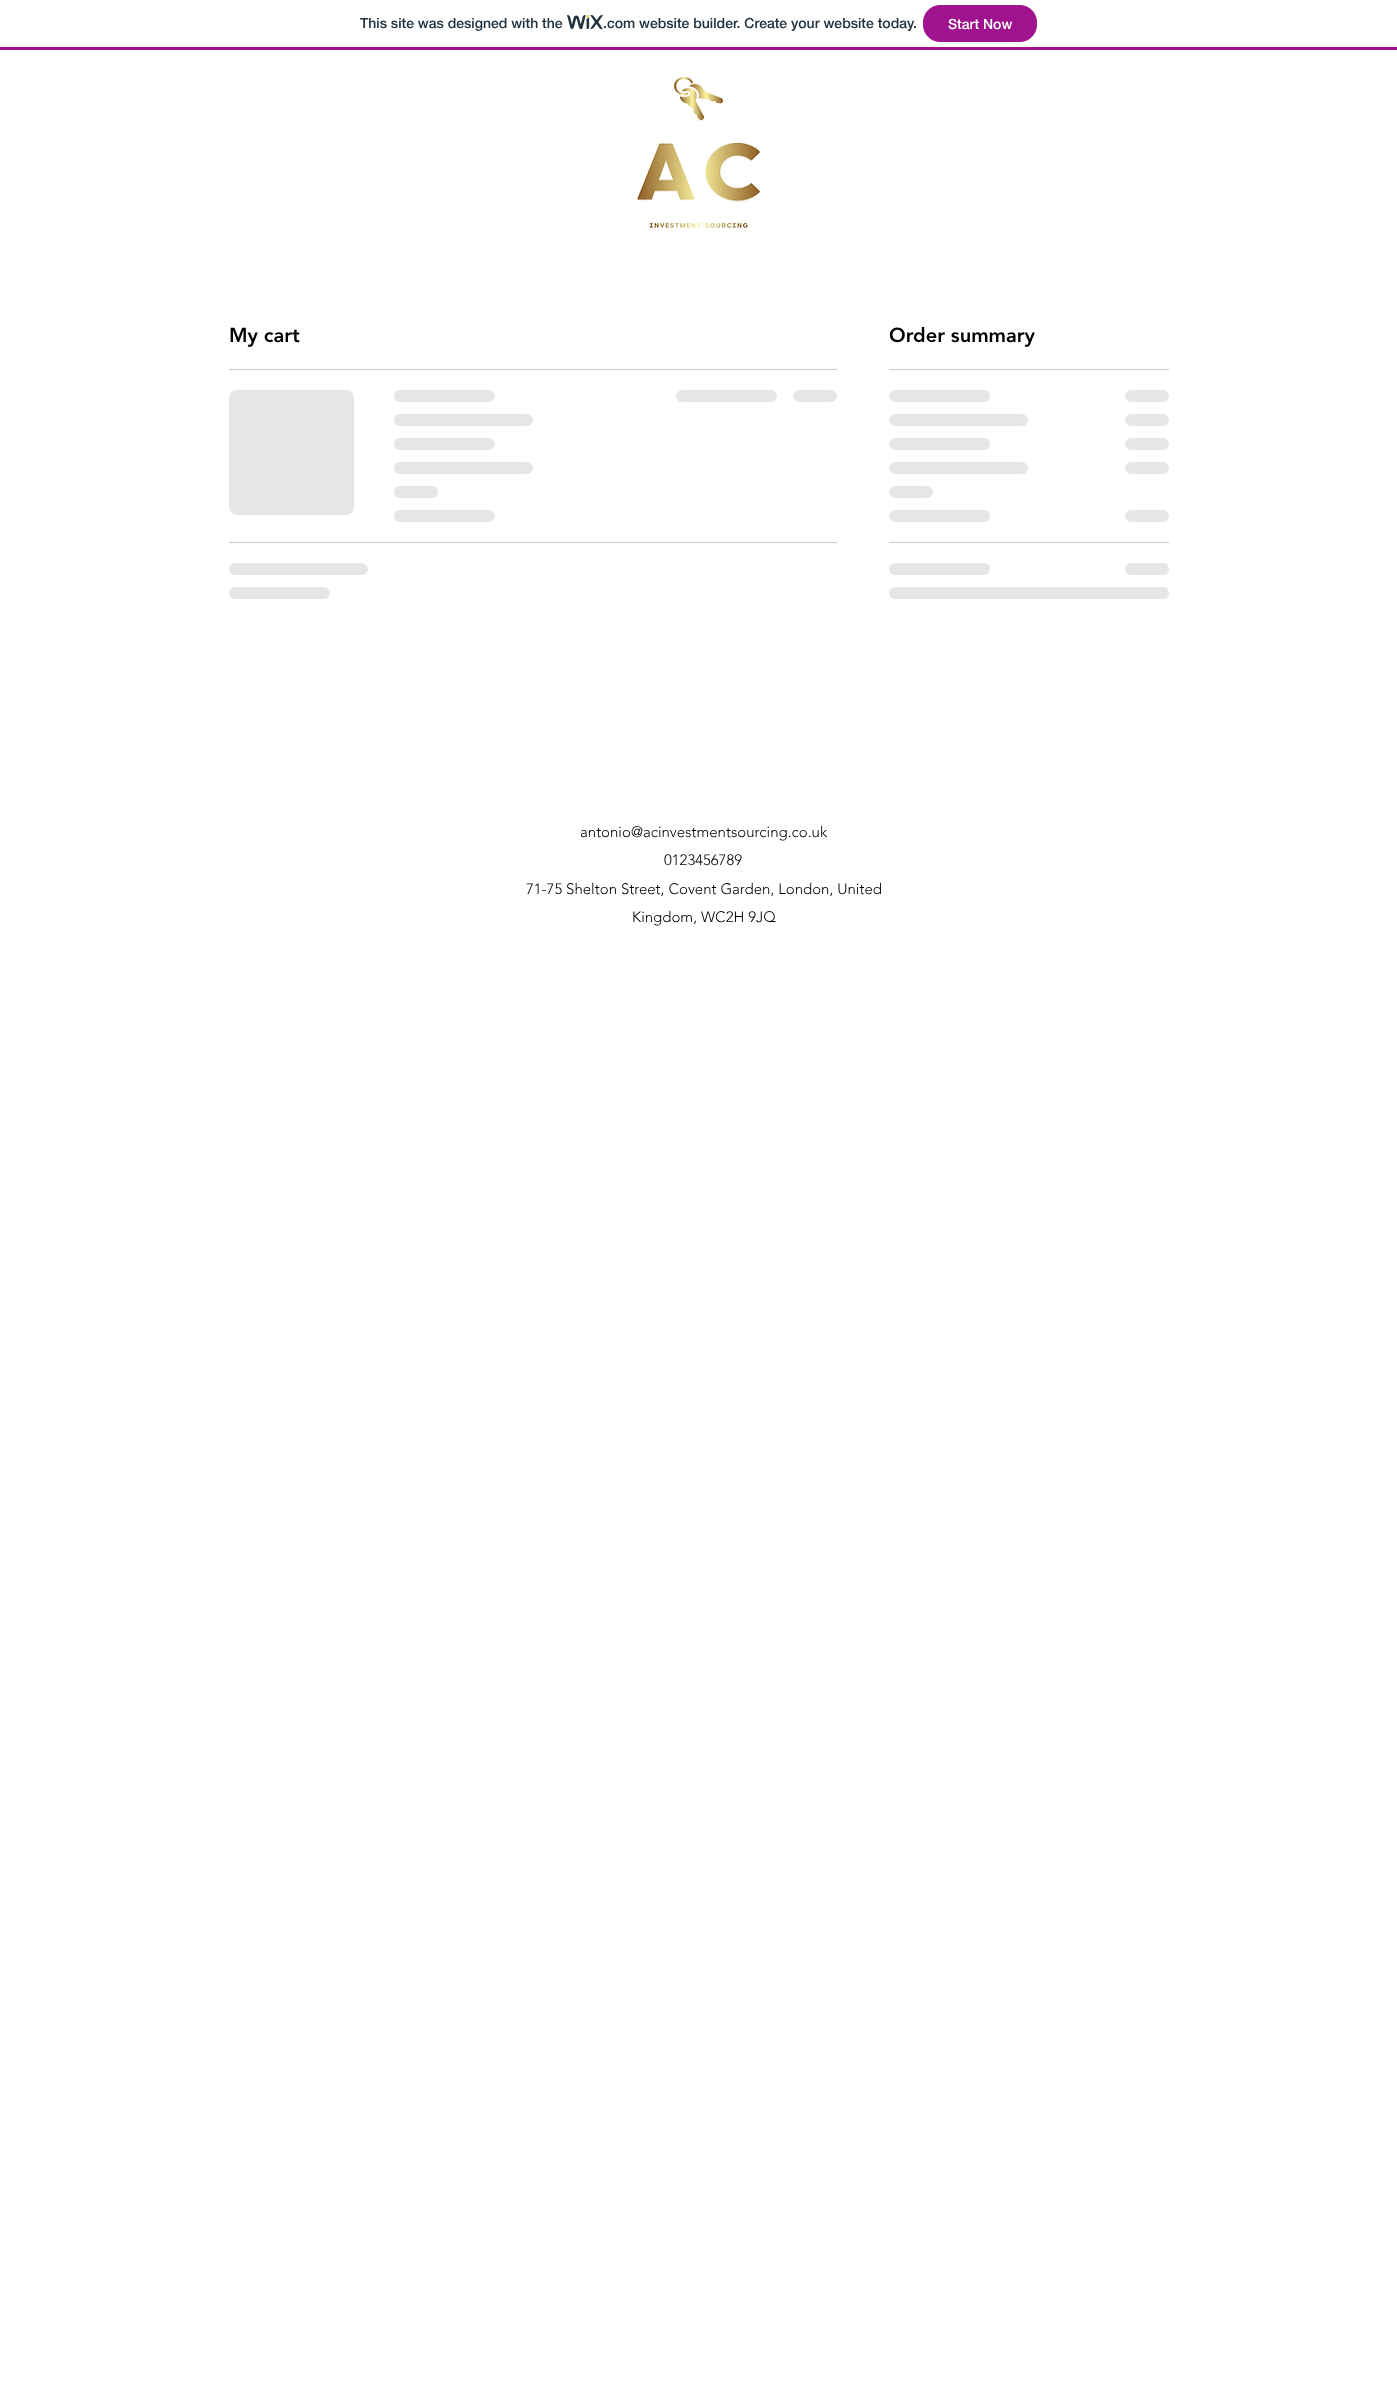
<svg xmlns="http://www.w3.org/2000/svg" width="1397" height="2381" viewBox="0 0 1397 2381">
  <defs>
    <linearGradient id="g1" gradientUnits="userSpaceOnUse" x1="229" y1="453" x2="729" y2="453"><stop offset="0.25" stop-color="#e6e6e6"/><stop offset="0.37" stop-color="#cccccc"/><stop offset="0.63" stop-color="#e6e6e6"/></linearGradient>
    <linearGradient id="g2" gradientUnits="userSpaceOnUse" x1="394" y1="396" x2="798" y2="396"><stop offset="0.25" stop-color="#e6e6e6"/><stop offset="0.37" stop-color="#cccccc"/><stop offset="0.63" stop-color="#e6e6e6"/></linearGradient>
    <linearGradient id="g3" gradientUnits="userSpaceOnUse" x1="394" y1="420" x2="950" y2="420"><stop offset="0.25" stop-color="#e6e6e6"/><stop offset="0.37" stop-color="#cccccc"/><stop offset="0.63" stop-color="#e6e6e6"/></linearGradient>
    <linearGradient id="g4" gradientUnits="userSpaceOnUse" x1="394" y1="444" x2="798" y2="444"><stop offset="0.25" stop-color="#e6e6e6"/><stop offset="0.37" stop-color="#cccccc"/><stop offset="0.63" stop-color="#e6e6e6"/></linearGradient>
    <linearGradient id="g5" gradientUnits="userSpaceOnUse" x1="394" y1="468" x2="950" y2="468"><stop offset="0.25" stop-color="#e6e6e6"/><stop offset="0.37" stop-color="#cccccc"/><stop offset="0.63" stop-color="#e6e6e6"/></linearGradient>
    <linearGradient id="g6" gradientUnits="userSpaceOnUse" x1="394" y1="492" x2="570" y2="492"><stop offset="0.25" stop-color="#e6e6e6"/><stop offset="0.37" stop-color="#cccccc"/><stop offset="0.63" stop-color="#e6e6e6"/></linearGradient>
    <linearGradient id="g7" gradientUnits="userSpaceOnUse" x1="394" y1="516" x2="798" y2="516"><stop offset="0.25" stop-color="#e6e6e6"/><stop offset="0.37" stop-color="#cccccc"/><stop offset="0.63" stop-color="#e6e6e6"/></linearGradient>
    <linearGradient id="g8" gradientUnits="userSpaceOnUse" x1="676" y1="396" x2="1080" y2="396"><stop offset="0.25" stop-color="#e6e6e6"/><stop offset="0.37" stop-color="#cccccc"/><stop offset="0.63" stop-color="#e6e6e6"/></linearGradient>
    <linearGradient id="g9" gradientUnits="userSpaceOnUse" x1="793" y1="396" x2="969" y2="396"><stop offset="0.25" stop-color="#e6e6e6"/><stop offset="0.37" stop-color="#cccccc"/><stop offset="0.63" stop-color="#e6e6e6"/></linearGradient>
    <linearGradient id="g10" gradientUnits="userSpaceOnUse" x1="229" y1="569" x2="785" y2="569"><stop offset="0.25" stop-color="#e6e6e6"/><stop offset="0.37" stop-color="#cccccc"/><stop offset="0.63" stop-color="#e6e6e6"/></linearGradient>
    <linearGradient id="g11" gradientUnits="userSpaceOnUse" x1="229" y1="593" x2="633" y2="593"><stop offset="0.25" stop-color="#e6e6e6"/><stop offset="0.37" stop-color="#cccccc"/><stop offset="0.63" stop-color="#e6e6e6"/></linearGradient>
    <linearGradient id="g12" gradientUnits="userSpaceOnUse" x1="889" y1="396" x2="1293" y2="396"><stop offset="0.25" stop-color="#e6e6e6"/><stop offset="0.37" stop-color="#cccccc"/><stop offset="0.63" stop-color="#e6e6e6"/></linearGradient>
    <linearGradient id="g13" gradientUnits="userSpaceOnUse" x1="1125" y1="396" x2="1301" y2="396"><stop offset="0.25" stop-color="#e6e6e6"/><stop offset="0.37" stop-color="#cccccc"/><stop offset="0.63" stop-color="#e6e6e6"/></linearGradient>
    <linearGradient id="g14" gradientUnits="userSpaceOnUse" x1="889" y1="420" x2="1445" y2="420"><stop offset="0.25" stop-color="#e6e6e6"/><stop offset="0.37" stop-color="#cccccc"/><stop offset="0.63" stop-color="#e6e6e6"/></linearGradient>
    <linearGradient id="g15" gradientUnits="userSpaceOnUse" x1="1125" y1="420" x2="1301" y2="420"><stop offset="0.25" stop-color="#e6e6e6"/><stop offset="0.37" stop-color="#cccccc"/><stop offset="0.63" stop-color="#e6e6e6"/></linearGradient>
    <linearGradient id="g16" gradientUnits="userSpaceOnUse" x1="889" y1="444" x2="1293" y2="444"><stop offset="0.25" stop-color="#e6e6e6"/><stop offset="0.37" stop-color="#cccccc"/><stop offset="0.63" stop-color="#e6e6e6"/></linearGradient>
    <linearGradient id="g17" gradientUnits="userSpaceOnUse" x1="1125" y1="444" x2="1301" y2="444"><stop offset="0.25" stop-color="#e6e6e6"/><stop offset="0.37" stop-color="#cccccc"/><stop offset="0.63" stop-color="#e6e6e6"/></linearGradient>
    <linearGradient id="g18" gradientUnits="userSpaceOnUse" x1="889" y1="468" x2="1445" y2="468"><stop offset="0.25" stop-color="#e6e6e6"/><stop offset="0.37" stop-color="#cccccc"/><stop offset="0.63" stop-color="#e6e6e6"/></linearGradient>
    <linearGradient id="g19" gradientUnits="userSpaceOnUse" x1="1125" y1="468" x2="1301" y2="468"><stop offset="0.25" stop-color="#e6e6e6"/><stop offset="0.37" stop-color="#cccccc"/><stop offset="0.63" stop-color="#e6e6e6"/></linearGradient>
    <linearGradient id="g20" gradientUnits="userSpaceOnUse" x1="889" y1="492" x2="1065" y2="492"><stop offset="0.25" stop-color="#e6e6e6"/><stop offset="0.37" stop-color="#cccccc"/><stop offset="0.63" stop-color="#e6e6e6"/></linearGradient>
    <linearGradient id="g21" gradientUnits="userSpaceOnUse" x1="889" y1="516" x2="1293" y2="516"><stop offset="0.25" stop-color="#e6e6e6"/><stop offset="0.37" stop-color="#cccccc"/><stop offset="0.63" stop-color="#e6e6e6"/></linearGradient>
    <linearGradient id="g22" gradientUnits="userSpaceOnUse" x1="1125" y1="516" x2="1301" y2="516"><stop offset="0.25" stop-color="#e6e6e6"/><stop offset="0.37" stop-color="#cccccc"/><stop offset="0.63" stop-color="#e6e6e6"/></linearGradient>
    <linearGradient id="g23" gradientUnits="userSpaceOnUse" x1="889" y1="569" x2="1293" y2="569"><stop offset="0.25" stop-color="#e6e6e6"/><stop offset="0.37" stop-color="#cccccc"/><stop offset="0.63" stop-color="#e6e6e6"/></linearGradient>
    <linearGradient id="g24" gradientUnits="userSpaceOnUse" x1="1125" y1="569" x2="1301" y2="569"><stop offset="0.25" stop-color="#e6e6e6"/><stop offset="0.37" stop-color="#cccccc"/><stop offset="0.63" stop-color="#e6e6e6"/></linearGradient>
    <linearGradient id="g25" gradientUnits="userSpaceOnUse" x1="889" y1="593" x2="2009" y2="593"><stop offset="0.25" stop-color="#e6e6e6"/><stop offset="0.37" stop-color="#cccccc"/><stop offset="0.63" stop-color="#e6e6e6"/></linearGradient>
  </defs>
  <rect width="100%" height="100%" fill="#ffffff"/>
  <rect x="0" y="47" width="1397" height="3" fill="#a0138e"/>
  <text x="360" y="28" font-family="'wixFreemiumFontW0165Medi'" font-size="14" font-weight="500" fill="#20303c">This site was designed with the</text>
  <image x="567" y="15" width="36" height="15" href="img1.png"/>
  <text x="603" y="28" font-family="'wixFreemiumFontW0165Medi'" font-size="14" font-weight="500" fill="#20303c">.com website builder. Create your website today.</text>
  <rect x="923.5" y="5.5" width="113" height="36" rx="16.5" fill="#a0138e" stroke="#a0138e"/>
  <text x="948" y="29" font-family="'wixFreemiumFontW0165Medi'" font-size="14" font-weight="500" fill="#ffffff">Start Now</text>
  <image x="636" y="76" width="124" height="152" href="img2.png"/>
  <rect x="229" y="369" width="608" height="1" fill="#cccccc"/>
  <text x="229" y="342" font-family="'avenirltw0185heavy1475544'" font-size="20" font-weight="900" fill="#000000">My cart</text>
  <rect x="229" y="390" width="125" height="125" rx="8" fill="url(#g1)"/>
  <rect x="394" y="390" width="101" height="12" rx="6" fill="url(#g2)"/>
  <rect x="394" y="414" width="139" height="12" rx="6" fill="url(#g3)"/>
  <rect x="394" y="438" width="101" height="12" rx="6" fill="url(#g4)"/>
  <rect x="394" y="462" width="139" height="12" rx="6" fill="url(#g5)"/>
  <rect x="394" y="486" width="44" height="12" rx="6" fill="url(#g6)"/>
  <rect x="394" y="510" width="101" height="12" rx="6" fill="url(#g7)"/>
  <rect x="676" y="390" width="101" height="12" rx="6" fill="url(#g8)"/>
  <rect x="793" y="390" width="44" height="12" rx="6" fill="url(#g9)"/>
  <rect x="229" y="542" width="608" height="1" fill="#cccccc"/>
  <rect x="229" y="563" width="139" height="12" rx="6" fill="url(#g10)"/>
  <rect x="229" y="587" width="101" height="12" rx="6" fill="url(#g11)"/>
  <rect x="889" y="369" width="280" height="1" fill="#cccccc"/>
  <text x="889" y="342" font-family="'avenirltw0185heavy1475544'" font-size="20" font-weight="900" fill="#000000">Order summary</text>
  <rect x="889" y="390" width="101" height="12" rx="6" fill="url(#g12)"/>
  <rect x="1125" y="390" width="44" height="12" rx="6" fill="url(#g13)"/>
  <rect x="889" y="414" width="139" height="12" rx="6" fill="url(#g14)"/>
  <rect x="1125" y="414" width="44" height="12" rx="6" fill="url(#g15)"/>
  <rect x="889" y="438" width="101" height="12" rx="6" fill="url(#g16)"/>
  <rect x="1125" y="438" width="44" height="12" rx="6" fill="url(#g17)"/>
  <rect x="889" y="462" width="139" height="12" rx="6" fill="url(#g18)"/>
  <rect x="1125" y="462" width="44" height="12" rx="6" fill="url(#g19)"/>
  <rect x="889" y="486" width="44" height="12" rx="6" fill="url(#g20)"/>
  <rect x="889" y="510" width="101" height="12" rx="6" fill="url(#g21)"/>
  <rect x="1125" y="510" width="44" height="12" rx="6" fill="url(#g22)"/>
  <rect x="889" y="542" width="280" height="1" fill="#cccccc"/>
  <rect x="889" y="563" width="101" height="12" rx="6" fill="url(#g23)"/>
  <rect x="1125" y="563" width="44" height="12" rx="6" fill="url(#g24)"/>
  <rect x="889" y="587" width="280" height="12" rx="6" fill="url(#g25)"/>
  <text x="580" y="837" font-family="'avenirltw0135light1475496'" font-size="15" font-weight="300" fill="#000000">antonio@acinvestmentsourcing.co.uk</text>
  <text x="664" y="865" font-family="'avenirltw0135light1475496'" font-size="15" font-weight="300" fill="#000000">0123456789</text>
  <text x="526" y="894" font-family="'avenirltw0135light1475496'" font-size="15" font-weight="300" fill="#000000">71-75 Shelton Street, Covent Garden, London, United</text>
  <text x="632" y="922" font-family="'avenirltw0135light1475496'" font-size="15" font-weight="300" fill="#000000">Kingdom, WC2H 9JQ</text>
</svg>
